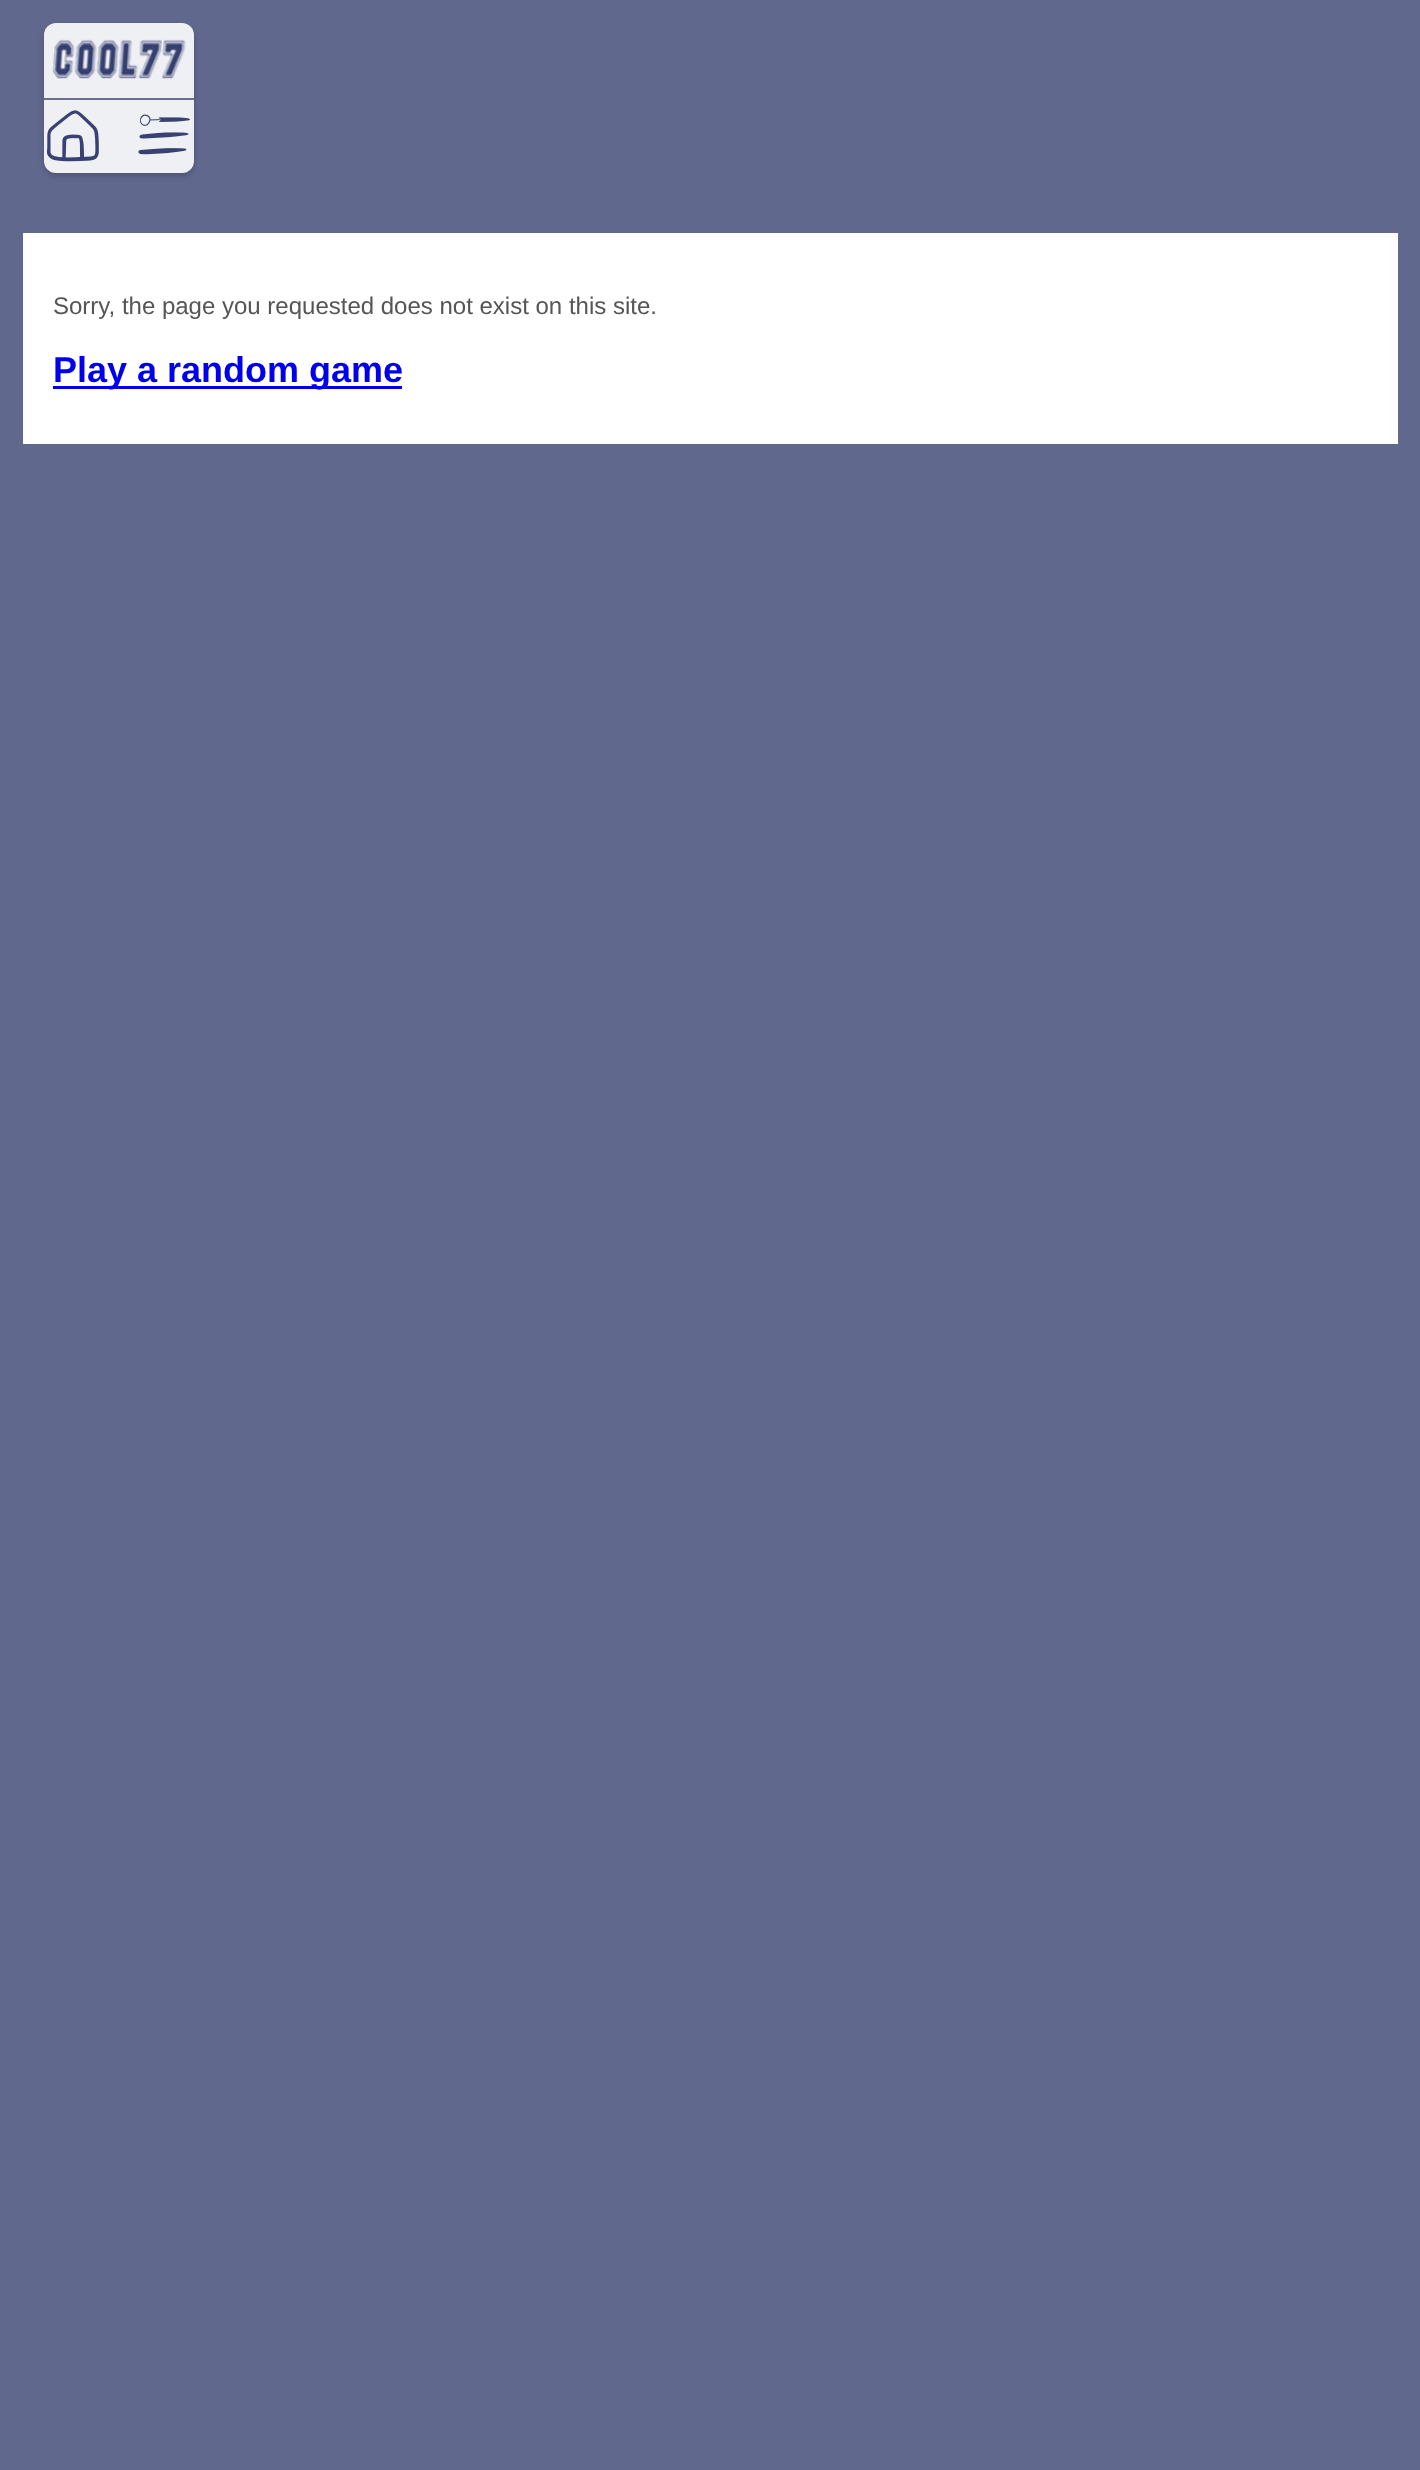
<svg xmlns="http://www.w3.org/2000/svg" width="1420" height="2470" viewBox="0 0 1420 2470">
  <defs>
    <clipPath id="clip1"><path d="M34 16H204V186H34ZM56 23H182C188.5 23 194 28.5 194 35V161C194 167.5 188.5 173 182 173H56C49.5 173 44 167.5 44 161V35C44 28.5 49.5 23 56 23Z" clip-rule="evenodd"/></clipPath>
    <filter id="blur1" x="-50%" y="-200%" width="200%" height="500%"><feGaussianBlur stdDeviation="3"/></filter>
  </defs>
  <rect width="100%" height="100%" fill="#60688e"/>
  <g clip-path="url(#clip1)">
    <rect x="44" y="26" width="150" height="150" rx="12" fill="#000000" fill-opacity="0.2" filter="url(#blur1)"/>
  </g>
  <rect x="44" y="23" width="150" height="150" rx="12" fill="#ffffff" fill-opacity="0.9"/>
  <image x="52" y="39" width="134" height="40" href="img1.png"/>
  <rect x="44" y="98" width="150" height="2" fill="#6c6f8e"/>
  <image x="47" y="110" width="52" height="52" href="img2.png"/>
  <image x="138" y="114" width="53" height="41" href="img3.png"/>
  <rect x="23" y="233" width="1375" height="211" fill="#ffffff"/>
  <text x="53" y="314" font-family="Liberation Sans" font-size="24" fill="#555555">Sorry, the page you requested does not exist on this site.</text>
  <rect x="53" y="386" width="349" height="3" fill="#0000ee"/>
  <text x="53" y="382" font-family="Liberation Sans" font-size="36" font-weight="bold" fill="#0000ee">Play a random game</text>
</svg>
